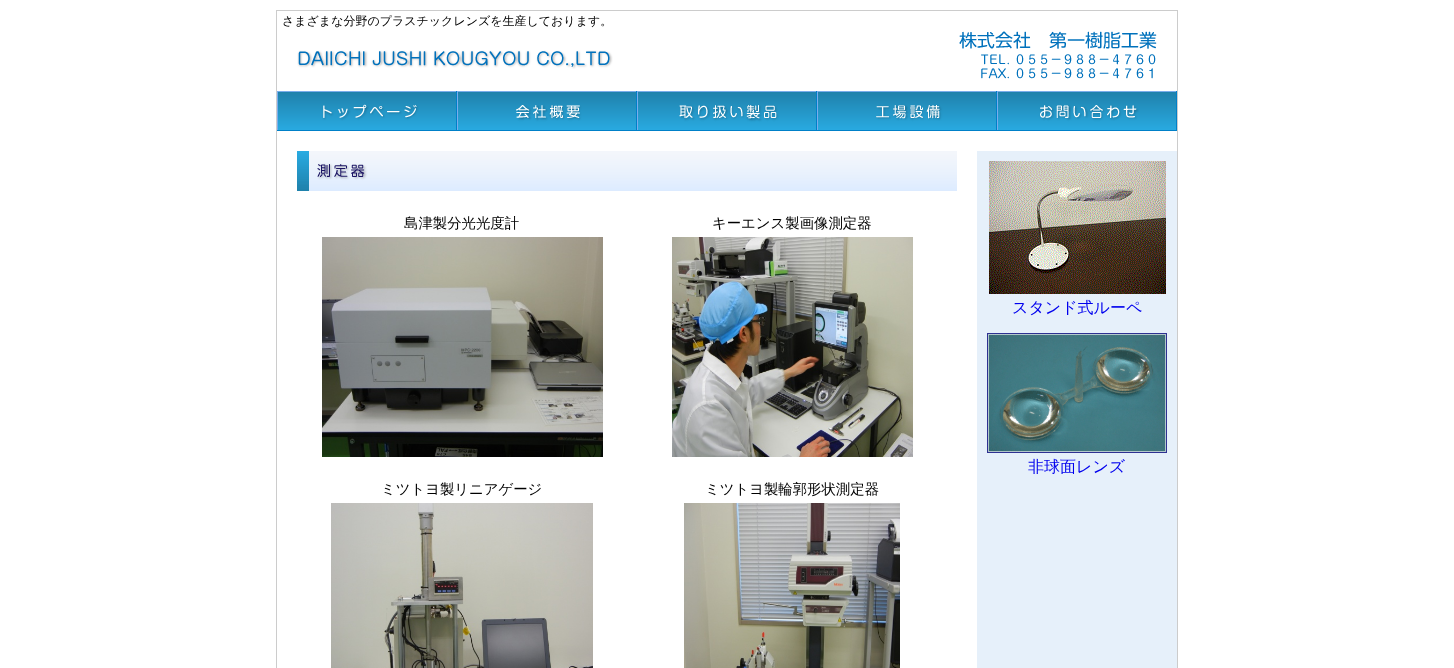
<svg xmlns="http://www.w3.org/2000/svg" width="1454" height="668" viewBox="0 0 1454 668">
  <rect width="100%" height="100%" fill="#ffffff"/>
  <rect x="276.5" y="10.5" width="901" height="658" fill="none" stroke="#cccccc"/>
  <text x="282" y="25" font-family="WenQuanYi Zen Hei" font-size="12" font-weight="500" fill="#000000">さまざまな分野のプラスチックレンズを生産しております。</text>
  <image x="297" y="50" width="316" height="19" href="img1.png"/>
  <image x="959" y="31" width="198" height="48" href="img2.png"/>
  <image x="277" y="91" width="180" height="40" href="img3.png"/>
  <image x="457" y="91" width="180" height="40" href="img4.png"/>
  <image x="637" y="91" width="180" height="40" href="img5.png"/>
  <image x="817" y="91" width="180" height="40" href="img6.png"/>
  <image x="997" y="91" width="180" height="40" href="img7.png"/>
  <rect x="977" y="151" width="200" height="517" fill="#e6f0fa"/>
  <image x="297" y="151" width="660" height="40" href="img8.png"/>
  <text x="404" y="228" font-family="WenQuanYi Zen Hei" font-size="14.4" font-weight="500" fill="#000000">島津製分光光度計</text>
  <image x="322" y="237" width="281" height="220" href="img9.png"/>
  <text x="712" y="228" font-family="WenQuanYi Zen Hei" font-size="14.4" font-weight="500" fill="#000000">キーエンス製画像測定器</text>
  <image x="672" y="237" width="241" height="220" href="img10.png"/>
  <text x="381" y="494" font-family="WenQuanYi Zen Hei" font-size="14.4" font-weight="500" fill="#000000">ミツトヨ製リニアゲージ</text>
  <image x="331" y="503" width="262" height="165" href="img11.png"/>
  <text x="705" y="494" font-family="WenQuanYi Zen Hei" font-size="14.4" font-weight="500" fill="#000000">ミツトヨ製輪郭形状測定器</text>
  <image x="684" y="503" width="216" height="165" href="img12.png"/>
  <image x="989" y="161" width="177" height="133" href="img13.png"/>
  <text x="1012" y="313" font-family="WenQuanYi Zen Hei" font-size="16" font-weight="500" fill="#0000ee">スタンド式ルーペ</text>
  <image x="987" y="333" width="180" height="120" href="img14.png"/>
  <text x="1028" y="472" font-family="WenQuanYi Zen Hei" font-size="16" font-weight="500" fill="#0000ee">非球面レンズ</text>
</svg>
